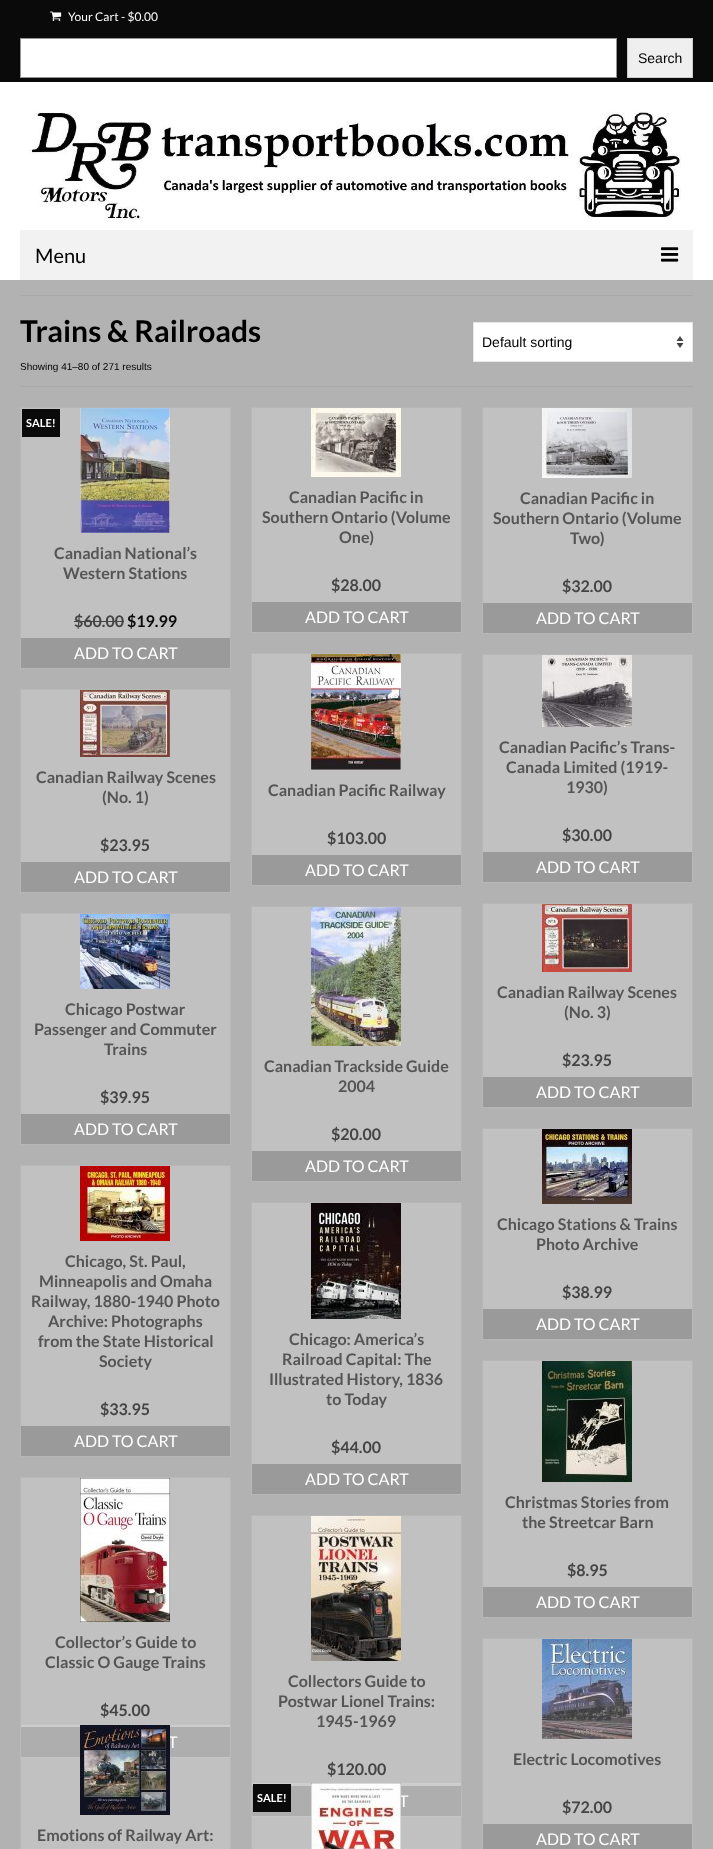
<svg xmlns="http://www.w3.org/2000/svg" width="713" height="1849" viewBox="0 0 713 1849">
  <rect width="100%" height="100%" fill="#ffffff"/>
  <rect x="0" y="0" width="713" height="82" fill="#0a0a0a"/>
  <image x="50" y="11" width="12" height="10" href="img1.png"/>
  <text x="68" y="21" font-family="Lato" font-size="12" fill="#ffffff">Your Cart - $0.00</text>
  <rect x="20.5" y="38.5" width="596" height="39" fill="#ffffff" stroke="#949494"/>
  <rect x="627.5" y="38.5" width="65" height="39" fill="#efefef" stroke="#cccccc"/>
  <text x="638" y="63" font-family="Liberation Sans" font-size="14" fill="#000000">Search</text>
  <image x="29" y="111" width="652" height="109" href="img2.png"/>
  <rect x="20" y="230" width="673" height="50" fill="#f2f2f2"/>
  <text x="35" y="263" font-family="Lato" font-size="20" fill="#000000">Menu</text>
  <image x="661" y="247" width="18" height="15" href="img3.png"/>
  <rect x="0" y="280" width="713" height="1569" fill="#b2b2b2"/>
  <rect x="20" y="295" width="673" height="1" fill="#a9a9a9"/>
  <rect x="20" y="386" width="673" height="1" fill="#a9a9a9"/>
  <text x="20" y="342" font-family="Lato" font-size="30" font-weight="bold" fill="#000000">Trains &amp; Railroads</text>
  <rect x="474" y="323" width="218" height="38" fill="#ffffff"/>
  <path d="M676.5 341L680 336L683.5 341ZM683.5 343L680 348L676.5 343Z" fill="#444444"/>
  <rect x="473.5" y="322.5" width="219" height="39" fill="none" stroke="#e6e6e6"/>
  <text x="482" y="347" font-family="Liberation Sans" font-size="14" fill="#000000">Default sorting</text>
  <text x="20" y="370" font-family="Liberation Sans" font-size="10" fill="#000000">Showing 41–80 of 271 results</text>
  <rect x="21" y="408" width="209" height="230" fill="#c1c1c1"/>
  <rect x="20.5" y="407.5" width="210" height="261" fill="none" stroke="#b7b7b7"/>
  <rect x="22" y="409" width="38" height="28" fill="#0a0a0a"/>
  <text x="26" y="427" font-family="Lato" font-size="11" font-weight="bold" fill="#ffffff">SALE!</text>
  <image x="80" y="408" width="90" height="125" href="img4.png"/>
  <text x="54" y="559" font-family="Lato" font-size="16" font-weight="bold" fill="#555555">Canadian National’s</text>
  <text x="63" y="579" font-family="Lato" font-size="16" font-weight="bold" fill="#555555">Western Stations</text>
  <text x="74" y="627" font-family="Lato" font-size="16" font-weight="bold" fill="#444444">$60.00</text>
  <rect x="74" y="621" width="50" height="1" fill="#444444"/>
  <text x="127" y="627" font-family="Lato" font-size="16" font-weight="bold" fill="#0a0a0a">$19.99</text>
  <rect x="21" y="638" width="209" height="30" fill="#9a9a9a"/>
  <text x="74" y="659" font-family="Lato" font-size="16" fill="#ffffff">ADD TO CART</text>
  <rect x="252" y="408" width="209" height="194" fill="#c1c1c1"/>
  <rect x="251.5" y="407.5" width="210" height="225" fill="none" stroke="#b7b7b7"/>
  <image x="311" y="408" width="90" height="69" href="img5.png"/>
  <text x="289" y="503" font-family="Lato" font-size="16" font-weight="bold" fill="#555555">Canadian Pacific in</text>
  <text x="262" y="523" font-family="Lato" font-size="16" font-weight="bold" fill="#555555">Southern Ontario (Volume</text>
  <text x="339" y="543" font-family="Lato" font-size="16" font-weight="bold" fill="#555555">One)</text>
  <text x="331" y="591" font-family="Lato" font-size="16" font-weight="bold" fill="#444444">$28.00</text>
  <rect x="252" y="602" width="209" height="30" fill="#9a9a9a"/>
  <text x="305" y="623" font-family="Lato" font-size="16" fill="#ffffff">ADD TO CART</text>
  <rect x="483" y="408" width="209" height="195" fill="#c1c1c1"/>
  <rect x="482.5" y="407.5" width="210" height="226" fill="none" stroke="#b7b7b7"/>
  <image x="542" y="408" width="90" height="70" href="img6.png"/>
  <text x="520" y="504" font-family="Lato" font-size="16" font-weight="bold" fill="#555555">Canadian Pacific in</text>
  <text x="493" y="524" font-family="Lato" font-size="16" font-weight="bold" fill="#555555">Southern Ontario (Volume</text>
  <text x="570" y="544" font-family="Lato" font-size="16" font-weight="bold" fill="#555555">Two)</text>
  <text x="562" y="592" font-family="Lato" font-size="16" font-weight="bold" fill="#444444">$32.00</text>
  <rect x="483" y="603" width="209" height="30" fill="#9a9a9a"/>
  <text x="536" y="624" font-family="Lato" font-size="16" fill="#ffffff">ADD TO CART</text>
  <rect x="21" y="690" width="209" height="172" fill="#c1c1c1"/>
  <rect x="20.5" y="689.5" width="210" height="203" fill="none" stroke="#b7b7b7"/>
  <image x="80" y="690" width="90" height="67" href="img7.png"/>
  <text x="36" y="783" font-family="Lato" font-size="16" font-weight="bold" fill="#555555">Canadian Railway Scenes</text>
  <text x="102" y="803" font-family="Lato" font-size="16" font-weight="bold" fill="#555555">(No. 1)</text>
  <text x="100" y="851" font-family="Lato" font-size="16" font-weight="bold" fill="#444444">$23.95</text>
  <rect x="21" y="862" width="209" height="30" fill="#9a9a9a"/>
  <text x="74" y="883" font-family="Lato" font-size="16" fill="#ffffff">ADD TO CART</text>
  <rect x="252" y="654" width="209" height="201" fill="#c1c1c1"/>
  <rect x="251.5" y="653.5" width="210" height="232" fill="none" stroke="#b7b7b7"/>
  <image x="311" y="654" width="90" height="116" href="img8.png"/>
  <text x="268" y="796" font-family="Lato" font-size="16" font-weight="bold" fill="#555555">Canadian Pacific Railway</text>
  <text x="327" y="844" font-family="Lato" font-size="16" font-weight="bold" fill="#444444">$103.00</text>
  <rect x="252" y="855" width="209" height="30" fill="#9a9a9a"/>
  <text x="305" y="876" font-family="Lato" font-size="16" fill="#ffffff">ADD TO CART</text>
  <rect x="483" y="655" width="209" height="197" fill="#c1c1c1"/>
  <rect x="482.5" y="654.5" width="210" height="228" fill="none" stroke="#b7b7b7"/>
  <image x="542" y="655" width="90" height="72" href="img9.png"/>
  <text x="499" y="753" font-family="Lato" font-size="16" font-weight="bold" fill="#555555">Canadian Pacific’s Trans-</text>
  <text x="506" y="773" font-family="Lato" font-size="16" font-weight="bold" fill="#555555">Canada Limited (1919-</text>
  <text x="566" y="793" font-family="Lato" font-size="16" font-weight="bold" fill="#555555">1930)</text>
  <text x="562" y="841" font-family="Lato" font-size="16" font-weight="bold" fill="#444444">$30.00</text>
  <rect x="483" y="852" width="209" height="30" fill="#9a9a9a"/>
  <text x="536" y="873" font-family="Lato" font-size="16" fill="#ffffff">ADD TO CART</text>
  <rect x="21" y="914" width="209" height="200" fill="#c1c1c1"/>
  <rect x="20.5" y="913.5" width="210" height="231" fill="none" stroke="#b7b7b7"/>
  <image x="80" y="914" width="90" height="75" href="img10.png"/>
  <text x="65" y="1015" font-family="Lato" font-size="16" font-weight="bold" fill="#555555">Chicago Postwar</text>
  <text x="34" y="1035" font-family="Lato" font-size="16" font-weight="bold" fill="#555555">Passenger and Commuter</text>
  <text x="104" y="1055" font-family="Lato" font-size="16" font-weight="bold" fill="#555555">Trains</text>
  <text x="100" y="1103" font-family="Lato" font-size="16" font-weight="bold" fill="#444444">$39.95</text>
  <rect x="21" y="1114" width="209" height="30" fill="#9a9a9a"/>
  <text x="74" y="1135" font-family="Lato" font-size="16" fill="#ffffff">ADD TO CART</text>
  <rect x="252" y="907" width="209" height="244" fill="#c1c1c1"/>
  <rect x="251.5" y="906.5" width="210" height="275" fill="none" stroke="#b7b7b7"/>
  <image x="311" y="907" width="90" height="139" href="img11.png"/>
  <text x="264" y="1072" font-family="Lato" font-size="16" font-weight="bold" fill="#555555">Canadian Trackside Guide</text>
  <text x="338" y="1092" font-family="Lato" font-size="16" font-weight="bold" fill="#555555">2004</text>
  <text x="331" y="1140" font-family="Lato" font-size="16" font-weight="bold" fill="#444444">$20.00</text>
  <rect x="252" y="1151" width="209" height="30" fill="#9a9a9a"/>
  <text x="305" y="1172" font-family="Lato" font-size="16" fill="#ffffff">ADD TO CART</text>
  <rect x="483" y="904" width="209" height="173" fill="#c1c1c1"/>
  <rect x="482.5" y="903.5" width="210" height="204" fill="none" stroke="#b7b7b7"/>
  <image x="542" y="904" width="90" height="68" href="img12.png"/>
  <text x="497" y="998" font-family="Lato" font-size="16" font-weight="bold" fill="#555555">Canadian Railway Scenes</text>
  <text x="564" y="1018" font-family="Lato" font-size="16" font-weight="bold" fill="#555555">(No. 3)</text>
  <text x="562" y="1066" font-family="Lato" font-size="16" font-weight="bold" fill="#444444">$23.95</text>
  <rect x="483" y="1077" width="209" height="30" fill="#9a9a9a"/>
  <text x="536" y="1098" font-family="Lato" font-size="16" fill="#ffffff">ADD TO CART</text>
  <rect x="21" y="1166" width="209" height="260" fill="#c1c1c1"/>
  <rect x="20.5" y="1165.5" width="210" height="291" fill="none" stroke="#b7b7b7"/>
  <image x="80" y="1166" width="90" height="75" href="img13.png"/>
  <text x="65" y="1267" font-family="Lato" font-size="16" font-weight="bold" fill="#555555">Chicago, St. Paul,</text>
  <text x="39" y="1287" font-family="Lato" font-size="16" font-weight="bold" fill="#555555">Minneapolis and Omaha</text>
  <text x="31" y="1307" font-family="Lato" font-size="16" font-weight="bold" fill="#555555">Railway, 1880-1940 Photo</text>
  <text x="48" y="1327" font-family="Lato" font-size="16" font-weight="bold" fill="#555555">Archive: Photographs</text>
  <text x="38" y="1347" font-family="Lato" font-size="16" font-weight="bold" fill="#555555">from the State Historical</text>
  <text x="99" y="1367" font-family="Lato" font-size="16" font-weight="bold" fill="#555555">Society</text>
  <text x="100" y="1415" font-family="Lato" font-size="16" font-weight="bold" fill="#444444">$33.95</text>
  <rect x="21" y="1426" width="209" height="30" fill="#9a9a9a"/>
  <text x="74" y="1447" font-family="Lato" font-size="16" fill="#ffffff">ADD TO CART</text>
  <rect x="252" y="1203" width="209" height="261" fill="#c1c1c1"/>
  <rect x="251.5" y="1202.5" width="210" height="292" fill="none" stroke="#b7b7b7"/>
  <image x="311" y="1203" width="90" height="116" href="img14.png"/>
  <text x="289" y="1345" font-family="Lato" font-size="16" font-weight="bold" fill="#555555">Chicago: America’s</text>
  <text x="282" y="1365" font-family="Lato" font-size="16" font-weight="bold" fill="#555555">Railroad Capital: The</text>
  <text x="269" y="1385" font-family="Lato" font-size="16" font-weight="bold" fill="#555555">Illustrated History, 1836</text>
  <text x="326" y="1405" font-family="Lato" font-size="16" font-weight="bold" fill="#555555">to Today</text>
  <text x="331" y="1453" font-family="Lato" font-size="16" font-weight="bold" fill="#444444">$44.00</text>
  <rect x="252" y="1464" width="209" height="30" fill="#9a9a9a"/>
  <text x="305" y="1485" font-family="Lato" font-size="16" fill="#ffffff">ADD TO CART</text>
  <rect x="483" y="1129" width="209" height="180" fill="#c1c1c1"/>
  <rect x="482.5" y="1128.5" width="210" height="211" fill="none" stroke="#b7b7b7"/>
  <image x="542" y="1129" width="90" height="75" href="img15.png"/>
  <text x="497" y="1230" font-family="Lato" font-size="16" font-weight="bold" fill="#555555">Chicago Stations &amp; Trains</text>
  <text x="536" y="1250" font-family="Lato" font-size="16" font-weight="bold" fill="#555555">Photo Archive</text>
  <text x="562" y="1298" font-family="Lato" font-size="16" font-weight="bold" fill="#444444">$38.99</text>
  <rect x="483" y="1309" width="209" height="30" fill="#9a9a9a"/>
  <text x="536" y="1330" font-family="Lato" font-size="16" fill="#ffffff">ADD TO CART</text>
  <rect x="483" y="1361" width="209" height="226" fill="#c1c1c1"/>
  <rect x="482.5" y="1360.5" width="210" height="257" fill="none" stroke="#b7b7b7"/>
  <image x="542" y="1361" width="90" height="121" href="img16.png"/>
  <text x="505" y="1508" font-family="Lato" font-size="16" font-weight="bold" fill="#555555">Christmas Stories from</text>
  <text x="522" y="1528" font-family="Lato" font-size="16" font-weight="bold" fill="#555555">the Streetcar Barn</text>
  <text x="567" y="1576" font-family="Lato" font-size="16" font-weight="bold" fill="#444444">$8.95</text>
  <rect x="483" y="1587" width="209" height="30" fill="#9a9a9a"/>
  <text x="536" y="1608" font-family="Lato" font-size="16" fill="#ffffff">ADD TO CART</text>
  <rect x="21" y="1478" width="209" height="249" fill="#c1c1c1"/>
  <rect x="20.5" y="1477.5" width="210" height="280" fill="none" stroke="#b7b7b7"/>
  <image x="80" y="1478" width="90" height="144" href="img17.png"/>
  <text x="55" y="1648" font-family="Lato" font-size="16" font-weight="bold" fill="#555555">Collector’s Guide to</text>
  <text x="45" y="1668" font-family="Lato" font-size="16" font-weight="bold" fill="#555555">Classic O Gauge Trains</text>
  <text x="100" y="1716" font-family="Lato" font-size="16" font-weight="bold" fill="#444444">$45.00</text>
  <rect x="21" y="1727" width="209" height="30" fill="#9a9a9a"/>
  <text x="168" y="1748" font-family="Lato" font-size="16" fill="#ffffff">T</text>
  <rect x="252" y="1516" width="209" height="270" fill="#c1c1c1"/>
  <rect x="251.5" y="1515.5" width="210" height="301" fill="none" stroke="#b7b7b7"/>
  <rect x="252" y="1786" width="209" height="30" fill="#9a9a9a"/>
  <text x="399" y="1807" font-family="Lato" font-size="16" fill="#ffffff">T</text>
  <rect x="251" y="1782" width="211" height="67" fill="#ffffff" fill-opacity="0.2"/>
  <rect x="251.5" y="1782.5" width="210" height="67" fill="none" stroke="#000000" stroke-opacity="0.05"/>
  <rect x="253" y="1784" width="38" height="28" fill="#0a0a0a"/>
  <text x="257" y="1802" font-family="Lato" font-size="11" font-weight="bold" fill="#ffffff">SALE!</text>
  <image x="311" y="1783" width="90" height="66" href="img18.png"/>
  <image x="311" y="1516" width="90" height="145" href="img19.png"/>
  <text x="288" y="1687" font-family="Lato" font-size="16" font-weight="bold" fill="#555555">Collectors Guide to</text>
  <text x="278" y="1707" font-family="Lato" font-size="16" font-weight="bold" fill="#555555">Postwar Lionel Trains:</text>
  <text x="316" y="1727" font-family="Lato" font-size="16" font-weight="bold" fill="#555555">1945-1969</text>
  <text x="327" y="1775" font-family="Lato" font-size="16" font-weight="bold" fill="#444444">$120.00</text>
  <rect x="483" y="1639" width="209" height="185" fill="#c1c1c1"/>
  <rect x="482.5" y="1638.5" width="210" height="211" fill="none" stroke="#b7b7b7"/>
  <image x="542" y="1639" width="90" height="100" href="img20.png"/>
  <text x="513" y="1765" font-family="Lato" font-size="16" font-weight="bold" fill="#555555">Electric Locomotives</text>
  <text x="562" y="1813" font-family="Lato" font-size="16" font-weight="bold" fill="#444444">$72.00</text>
  <rect x="483" y="1824" width="209" height="25" fill="#9a9a9a"/>
  <text x="536" y="1845" font-family="Lato" font-size="16" fill="#ffffff">ADD TO CART</text>
  <rect x="20" y="1724" width="211" height="125" fill="#ffffff" fill-opacity="0.2"/>
  <rect x="20.5" y="1724.5" width="210" height="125" fill="none" stroke="#000000" stroke-opacity="0.05"/>
  <image x="80" y="1725" width="90" height="90" href="img21.png"/>
  <text x="37" y="1841" font-family="Lato" font-size="16" font-weight="bold" fill="#555555">Emotions of Railway Art:</text>
</svg>
